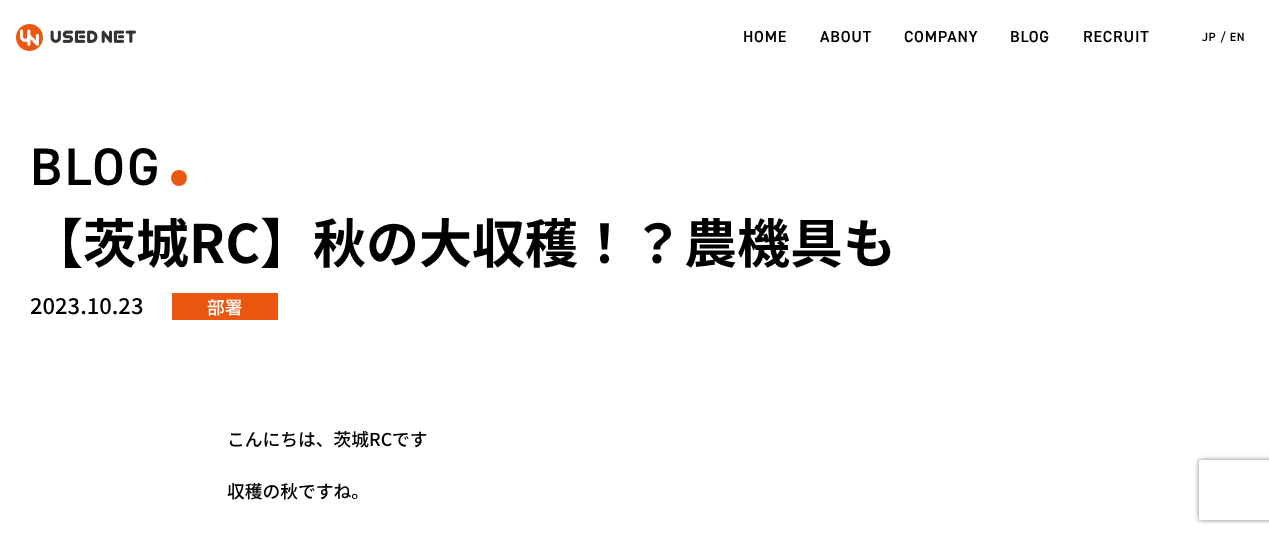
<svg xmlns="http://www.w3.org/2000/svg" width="1269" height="534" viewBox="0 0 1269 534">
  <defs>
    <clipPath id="clip1"><path d="M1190 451H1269V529H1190ZM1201 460H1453C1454 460 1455 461 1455 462V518C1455 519 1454 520 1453 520H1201C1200 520 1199 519 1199 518V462C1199 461 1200 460 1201 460Z" clip-rule="evenodd"/></clipPath>
    <filter id="blur1" x="-50%" y="-200%" width="200%" height="500%"><feGaussianBlur stdDeviation="2.5"/></filter>
  </defs>
  <rect width="100%" height="100%" fill="#ffffff"/>
  <image x="16" y="24" width="120" height="27" href="img1.png"/>
  <text x="743" y="42" font-family="'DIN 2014'" font-size="16" font-weight="600" letter-spacing="0.75" fill="#000000">HOME</text>
  <text x="820" y="42" font-family="'DIN 2014'" font-size="16" font-weight="600" letter-spacing="0.75" fill="#000000">ABOUT</text>
  <text x="904" y="42" font-family="'DIN 2014'" font-size="16" font-weight="600" letter-spacing="0.75" fill="#000000">COMPANY</text>
  <text x="1010" y="42" font-family="'DIN 2014'" font-size="16" font-weight="600" letter-spacing="0.75" fill="#000000">BLOG</text>
  <text x="1083" y="42" font-family="'DIN 2014'" font-size="16" font-weight="600" letter-spacing="0.75" fill="#000000">RECRUIT</text>
  <text x="1202" y="41" font-family="'DIN 2014'" font-size="12" font-weight="600" letter-spacing="0.5" fill="#000000">JP</text>
  <text x="1220" y="41" font-family="'DIN 2014'" font-size="12" font-weight="600" letter-spacing="0.5" fill="#000000">/ EN</text>
  <text x="30" y="185" font-family="'DIN 2014'" font-size="53" font-weight="600" letter-spacing="2.5" fill="#000000">BLOG</text>
  <circle cx="179" cy="178" r="8" fill="#e95711"/>
  <text x="30" y="263" font-family="Noto Sans JP" font-size="53" font-weight="bold" fill="#000000">【茨城RC】秋の大収穫！？農機具も</text>
  <text x="30" y="314" font-family="Noto Sans JP" font-size="22" font-weight="500" fill="#000000">2023.10.23</text>
  <rect x="172" y="293" width="106" height="27" fill="#e95711"/>
  <text x="207" y="314" font-family="Noto Sans JP" font-size="17.75" font-weight="500" fill="#ffffff">部署</text>
  <text x="227" y="446" font-family="Noto Sans JP" font-size="17.75" font-weight="500" fill="#000000">こんにちは、茨城RCです</text>
  <text x="227" y="498" font-family="Noto Sans JP" font-size="17.75" font-weight="500" fill="#000000">収穫の秋ですね。</text>
  <g clip-path="url(#clip1)">
    <rect x="1199" y="460" width="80" height="60" rx="2" fill="#808080" filter="url(#blur1)"/>
  </g>
</svg>
